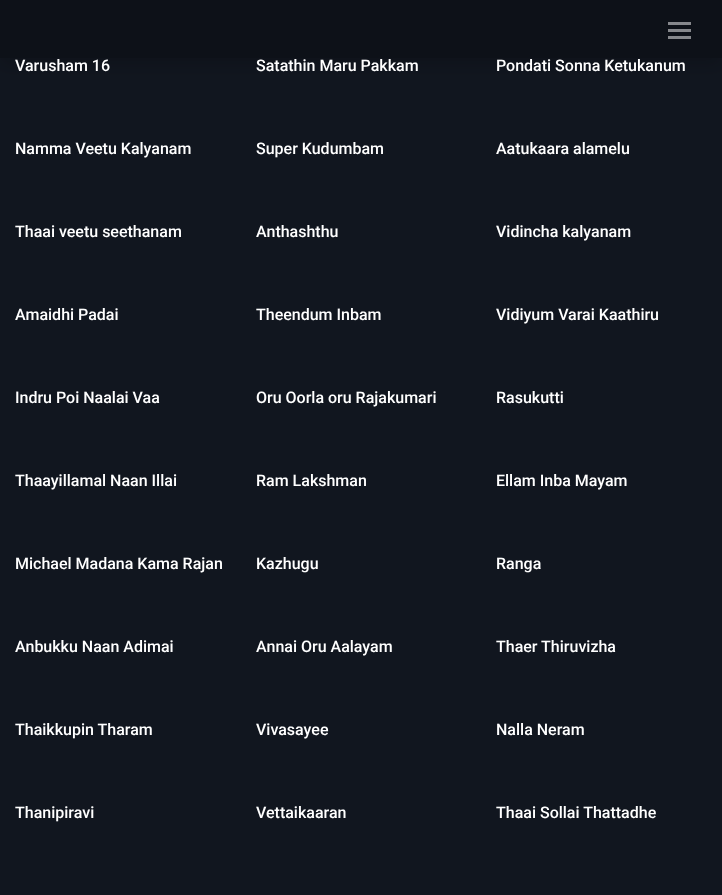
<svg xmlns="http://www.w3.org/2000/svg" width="722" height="895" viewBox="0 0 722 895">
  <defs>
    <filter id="blur1" x="-50%" y="-200%" width="200%" height="500%"><feGaussianBlur stdDeviation="8"/></filter>
  </defs>
  <rect width="100%" height="100%" fill="#11161f"/>
  <rect x="0" y="8" width="722" height="58" fill="#000000" fill-opacity="0.15" filter="url(#blur1)"/>
  <rect x="0" y="0" width="722" height="58" fill="#0d1118"/>
  <rect x="668" y="29" width="23" height="3" fill="#86888c"/>
  <rect x="668" y="22" width="23" height="3" fill="#86888c"/>
  <rect x="668" y="36" width="23" height="3" fill="#86888c"/>
  <text x="15" y="71" font-family="Roboto" font-size="16" font-weight="500" fill="#ffffff">Varusham 16</text>
  <text x="256" y="71" font-family="Roboto" font-size="16" font-weight="500" fill="#ffffff">Satathin Maru Pakkam</text>
  <text x="496" y="71" font-family="Roboto" font-size="16" font-weight="500" fill="#ffffff">Pondati Sonna Ketukanum</text>
  <text x="15" y="154" font-family="Roboto" font-size="16" font-weight="500" fill="#ffffff">Namma Veetu Kalyanam</text>
  <text x="256" y="154" font-family="Roboto" font-size="16" font-weight="500" fill="#ffffff">Super Kudumbam</text>
  <text x="496" y="154" font-family="Roboto" font-size="16" font-weight="500" fill="#ffffff">Aatukaara alamelu</text>
  <text x="15" y="237" font-family="Roboto" font-size="16" font-weight="500" fill="#ffffff">Thaai veetu seethanam</text>
  <text x="256" y="237" font-family="Roboto" font-size="16" font-weight="500" fill="#ffffff">Anthashthu</text>
  <text x="496" y="237" font-family="Roboto" font-size="16" font-weight="500" fill="#ffffff">Vidincha kalyanam</text>
  <text x="15" y="320" font-family="Roboto" font-size="16" font-weight="500" fill="#ffffff">Amaidhi Padai</text>
  <text x="256" y="320" font-family="Roboto" font-size="16" font-weight="500" fill="#ffffff">Theendum Inbam</text>
  <text x="496" y="320" font-family="Roboto" font-size="16" font-weight="500" fill="#ffffff">Vidiyum Varai Kaathiru</text>
  <text x="15" y="403" font-family="Roboto" font-size="16" font-weight="500" fill="#ffffff">Indru Poi Naalai Vaa</text>
  <text x="256" y="403" font-family="Roboto" font-size="16" font-weight="500" fill="#ffffff">Oru Oorla oru Rajakumari</text>
  <text x="496" y="403" font-family="Roboto" font-size="16" font-weight="500" fill="#ffffff">Rasukutti</text>
  <text x="15" y="486" font-family="Roboto" font-size="16" font-weight="500" fill="#ffffff">Thaayillamal Naan Illai</text>
  <text x="256" y="486" font-family="Roboto" font-size="16" font-weight="500" fill="#ffffff">Ram Lakshman</text>
  <text x="496" y="486" font-family="Roboto" font-size="16" font-weight="500" fill="#ffffff">Ellam Inba Mayam</text>
  <text x="15" y="569" font-family="Roboto" font-size="16" font-weight="500" fill="#ffffff">Michael Madana Kama Rajan</text>
  <text x="256" y="569" font-family="Roboto" font-size="16" font-weight="500" fill="#ffffff">Kazhugu</text>
  <text x="496" y="569" font-family="Roboto" font-size="16" font-weight="500" fill="#ffffff">Ranga</text>
  <text x="15" y="652" font-family="Roboto" font-size="16" font-weight="500" fill="#ffffff">Anbukku Naan Adimai</text>
  <text x="256" y="652" font-family="Roboto" font-size="16" font-weight="500" fill="#ffffff">Annai Oru Aalayam</text>
  <text x="496" y="652" font-family="Roboto" font-size="16" font-weight="500" fill="#ffffff">Thaer Thiruvizha</text>
  <text x="15" y="735" font-family="Roboto" font-size="16" font-weight="500" fill="#ffffff">Thaikkupin Tharam</text>
  <text x="256" y="735" font-family="Roboto" font-size="16" font-weight="500" fill="#ffffff">Vivasayee</text>
  <text x="496" y="735" font-family="Roboto" font-size="16" font-weight="500" fill="#ffffff">Nalla Neram</text>
  <text x="15" y="818" font-family="Roboto" font-size="16" font-weight="500" fill="#ffffff">Thanipiravi</text>
  <text x="256" y="818" font-family="Roboto" font-size="16" font-weight="500" fill="#ffffff">Vettaikaaran</text>
  <text x="496" y="818" font-family="Roboto" font-size="16" font-weight="500" fill="#ffffff">Thaai Sollai Thattadhe</text>
</svg>
